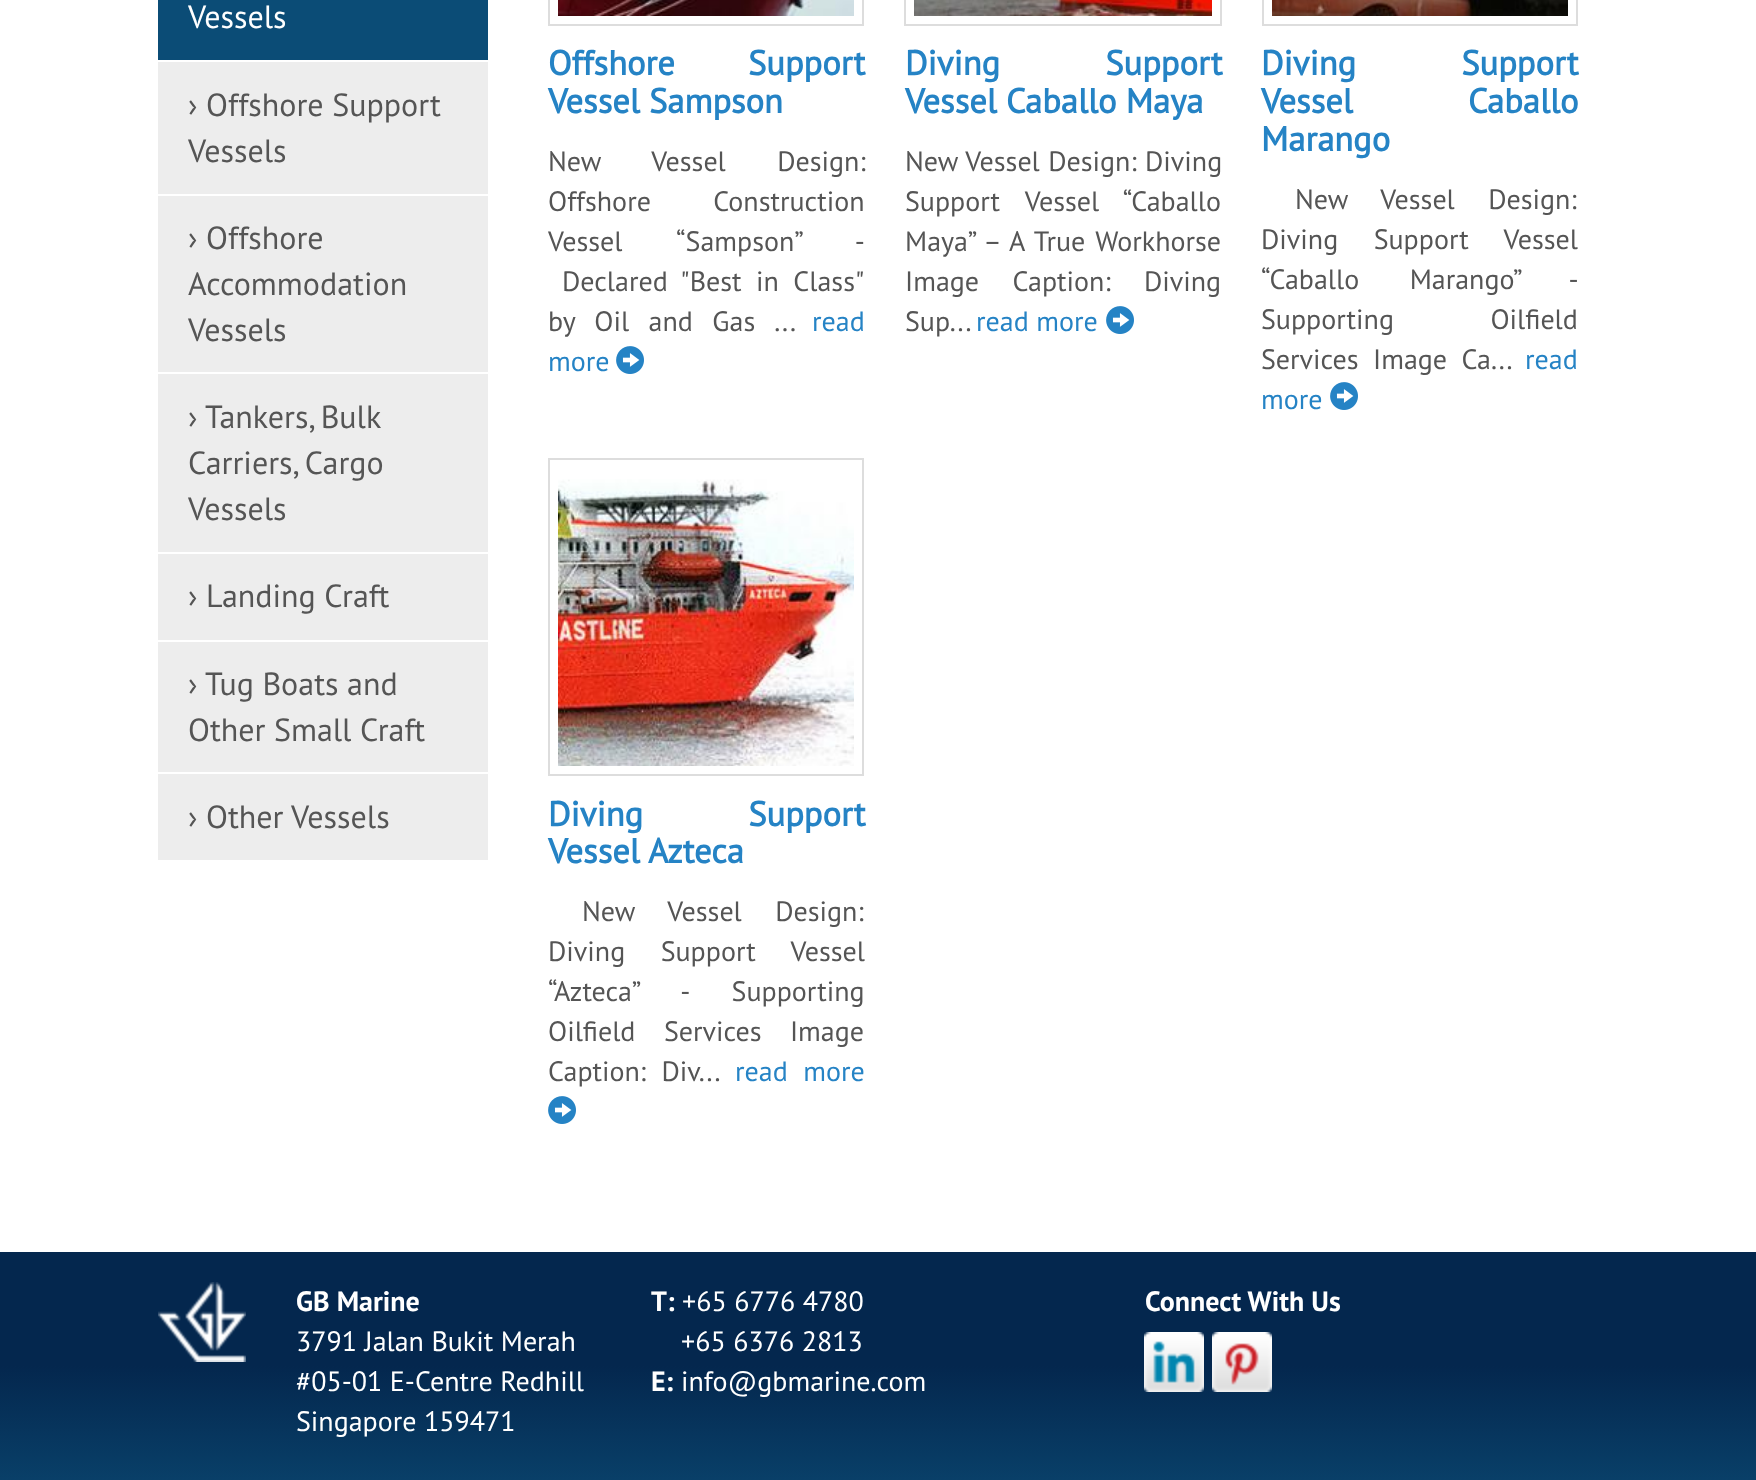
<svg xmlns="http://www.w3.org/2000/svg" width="1756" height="1480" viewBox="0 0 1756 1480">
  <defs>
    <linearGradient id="g1" gradientUnits="userSpaceOnUse" x1="878" y1="1252" x2="878" y2="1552"><stop offset="0.38" stop-color="#04274e"/><stop offset="1" stop-color="#0c4f79"/></linearGradient>
  </defs>
  <rect width="100%" height="100%" fill="#ffffff"/>
  <rect x="158" y="0" width="330" height="60" fill="#0b4c76"/>
  <text x="188" y="28" font-family="PT Sans" font-size="32" fill="#ffffff">Vessels</text>
  <rect x="158" y="62" width="330" height="132" fill="#ededed"/>
  <text x="188" y="116" font-family="PT Sans" font-size="32" fill="#555555">› Offshore Support</text>
  <text x="188" y="162" font-family="PT Sans" font-size="32" fill="#555555">Vessels</text>
  <rect x="158" y="196" width="330" height="176" fill="#ededed"/>
  <text x="188" y="249" font-family="PT Sans" font-size="32" fill="#555555">› Offshore</text>
  <text x="188" y="295" font-family="PT Sans" font-size="32" fill="#555555">Accommodation</text>
  <text x="188" y="341" font-family="PT Sans" font-size="32" fill="#555555">Vessels</text>
  <rect x="158" y="374" width="330" height="178" fill="#ededed"/>
  <text x="188" y="428" font-family="PT Sans" font-size="32" fill="#555555">› Tankers, Bulk</text>
  <text x="188" y="474" font-family="PT Sans" font-size="32" fill="#555555">Carriers, Cargo</text>
  <text x="188" y="520" font-family="PT Sans" font-size="32" fill="#555555">Vessels</text>
  <rect x="158" y="554" width="330" height="86" fill="#ededed"/>
  <text x="188" y="607" font-family="PT Sans" font-size="32" fill="#555555">› Landing Craft</text>
  <rect x="158" y="642" width="330" height="130" fill="#ededed"/>
  <text x="188" y="695" font-family="PT Sans" font-size="32" fill="#555555">› Tug Boats and</text>
  <text x="188" y="741" font-family="PT Sans" font-size="32" fill="#555555">Other Small Craft</text>
  <rect x="158" y="774" width="330" height="86" fill="#ededed"/>
  <text x="188" y="828" font-family="PT Sans" font-size="32" fill="#555555">› Other Vessels</text>
  <rect x="549" y="-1" width="314" height="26" fill="none" stroke="#dddddd" stroke-width="2"/>
  <image x="558" y="0" width="296" height="16" href="img1.png"/>
  <text x="548" y="75" word-spacing="64" font-family="PT Sans" font-size="34.5" font-weight="bold" fill="#2583c5">Offshore Support</text>
  <text x="548" y="113" font-family="PT Sans" font-size="34.5" font-weight="bold" fill="#2583c5">Vessel Sampson</text>
  <text x="548" y="171" word-spacing="44" font-family="PT Sans" font-size="28" fill="#555555">New Vessel Design:</text>
  <text x="548" y="211" word-spacing="55" font-family="PT Sans" font-size="28" fill="#555555">Offshore Construction</text>
  <text x="548" y="251" word-spacing="48" font-family="PT Sans" font-size="28" fill="#555555">Vessel “Sampson” -</text>
  <text x="562" y="291" word-spacing="7" font-family="PT Sans" font-size="28" fill="#555555">Declared "Best in Class"</text>
  <text x="548" y="331" word-spacing="12" font-family="PT Sans" font-size="28" fill="#555555">by Oil and Gas ...</text>
  <text x="812" y="331" font-family="PT Sans" font-size="28" fill="#2583c5">read</text>
  <text x="548" y="371" font-family="PT Sans" font-size="28" fill="#2583c5">more</text>
  <image x="616" y="346" width="28" height="28" href="img2.png"/>
  <rect x="905" y="-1" width="316" height="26" fill="none" stroke="#dddddd" stroke-width="2"/>
  <image x="914" y="0" width="298" height="16" href="img3.png"/>
  <text x="905" y="75" word-spacing="96" font-family="PT Sans" font-size="34.5" font-weight="bold" fill="#2583c5">Diving Support</text>
  <text x="905" y="113" font-family="PT Sans" font-size="34.5" font-weight="bold" fill="#2583c5">Vessel Caballo Maya</text>
  <text x="905" y="171" word-spacing="1" font-family="PT Sans" font-size="28" fill="#555555">New Vessel Design: Diving</text>
  <text x="905" y="211" word-spacing="18" font-family="PT Sans" font-size="28" fill="#555555">Support Vessel “Caballo</text>
  <text x="905" y="251" word-spacing="3" font-family="PT Sans" font-size="28" fill="#555555">Maya” – A True Workhorse</text>
  <text x="905" y="291" word-spacing="26" font-family="PT Sans" font-size="28" fill="#555555">Image Caption: Diving</text>
  <text x="905" y="331" font-family="PT Sans" font-size="28" fill="#555555">Sup...</text>
  <text x="976" y="331" font-family="PT Sans" font-size="28" fill="#2583c5">read more</text>
  <image x="1106" y="306" width="28" height="28" href="img2.png"/>
  <rect x="1263" y="-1" width="314" height="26" fill="none" stroke="#dddddd" stroke-width="2"/>
  <image x="1272" y="0" width="296" height="16" href="img4.png"/>
  <text x="1261" y="75" word-spacing="96" font-family="PT Sans" font-size="34.5" font-weight="bold" fill="#2583c5">Diving Support</text>
  <text x="1261" y="113" word-spacing="106" font-family="PT Sans" font-size="34.5" font-weight="bold" fill="#2583c5">Vessel Caballo</text>
  <text x="1261" y="151" font-family="PT Sans" font-size="34.5" font-weight="bold" fill="#2583c5">Marango</text>
  <text x="1295" y="209" word-spacing="26" font-family="PT Sans" font-size="28" fill="#555555">New Vessel Design:</text>
  <text x="1261" y="249" word-spacing="28" font-family="PT Sans" font-size="28" fill="#555555">Diving Support Vessel</text>
  <text x="1261" y="289" word-spacing="43" font-family="PT Sans" font-size="28" fill="#555555">“Caballo Marango” -</text>
  <text x="1261" y="329" word-spacing="89" font-family="PT Sans" font-size="28" fill="#555555">Supporting Oilfield</text>
  <text x="1261" y="369" font-family="PT Sans" font-size="28" fill="#555555">Services</text>
  <text x="1525" y="369" font-family="PT Sans" font-size="28" fill="#2583c5">read</text>
  <text x="1261" y="409" font-family="PT Sans" font-size="28" fill="#2583c5">more</text>
  <image x="1330" y="382" width="28" height="28" href="img2.png"/>
  <text x="1373" y="369" word-spacing="7" font-family="PT Sans" font-size="28" fill="#555555">Image Ca...</text>
  <rect x="549" y="459" width="314" height="316" fill="none" stroke="#dddddd" stroke-width="2"/>
  <image x="558" y="479" width="296" height="287" href="img5.png"/>
  <text x="548" y="826" word-spacing="96" font-family="PT Sans" font-size="34.5" font-weight="bold" fill="#2583c5">Diving Support</text>
  <text x="548" y="863" font-family="PT Sans" font-size="34.5" font-weight="bold" fill="#2583c5">Vessel Azteca</text>
  <text x="582" y="921" word-spacing="26" font-family="PT Sans" font-size="28" fill="#555555">New Vessel Design:</text>
  <text x="548" y="961" word-spacing="28" font-family="PT Sans" font-size="28" fill="#555555">Diving Support Vessel</text>
  <text x="548" y="1001" word-spacing="36" font-family="PT Sans" font-size="28" fill="#555555">“Azteca” - Supporting</text>
  <text x="548" y="1041" word-spacing="21" font-family="PT Sans" font-size="28" fill="#555555">Oilfield Services Image</text>
  <text x="548" y="1081" word-spacing="8" font-family="PT Sans" font-size="28" fill="#555555">Caption: Div...</text>
  <text x="735" y="1081" word-spacing="8" font-family="PT Sans" font-size="28" fill="#2583c5">read more</text>
  <image x="548" y="1096" width="28" height="28" href="img2.png"/>
  <rect x="0" y="1252" width="1756" height="228" fill="url(#g1)"/>
  <image x="158" y="1282" width="88" height="80" href="img6.png"/>
  <text x="296" y="1311" font-family="'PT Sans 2'" font-size="28" font-weight="bold" fill="#ffffff">GB Marine</text>
  <text x="296" y="1351" font-family="PT Sans" font-size="28" fill="#ffffff">3791 Jalan Bukit Merah</text>
  <text x="296" y="1391" font-family="PT Sans" font-size="28" fill="#ffffff">#05-01 E-Centre Redhill</text>
  <text x="296" y="1431" font-family="PT Sans" font-size="28" fill="#ffffff">Singapore 159471</text>
  <text x="651" y="1311" font-family="'PT Sans 2'" font-size="28" font-weight="bold" fill="#ffffff">T:</text>
  <text x="682" y="1311" font-family="PT Sans" font-size="28" fill="#ffffff">+65 6776 4780</text>
  <text x="681" y="1351" font-family="PT Sans" font-size="28" fill="#ffffff">+65 6376 2813</text>
  <text x="651" y="1391" font-family="'PT Sans 2'" font-size="28" font-weight="bold" fill="#ffffff">E:</text>
  <text x="681" y="1391" font-family="PT Sans" font-size="28" fill="#ffffff">info@gbmarine.com</text>
  <text x="1145" y="1311" font-family="'PT Sans 2'" font-size="28" font-weight="bold" fill="#ffffff">Connect With Us</text>
  <image x="1144" y="1332" width="60" height="60" href="img7.png"/>
  <image x="1212" y="1332" width="60" height="60" href="img8.png"/>
</svg>
